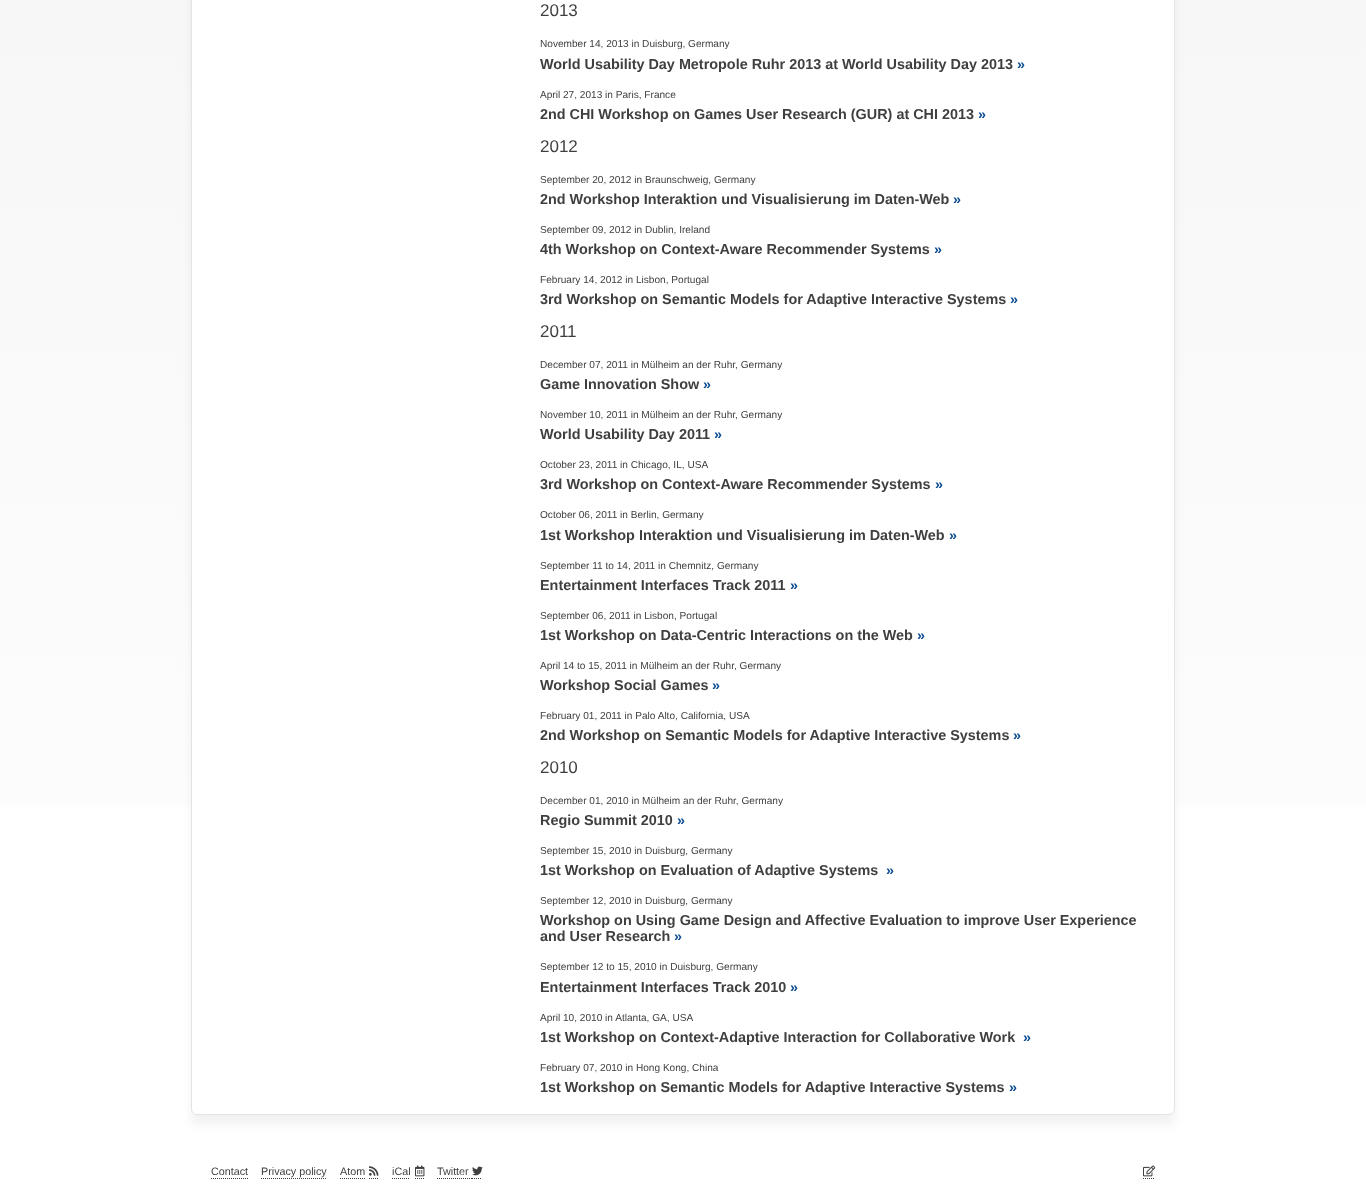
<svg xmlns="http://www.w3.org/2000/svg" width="1366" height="1195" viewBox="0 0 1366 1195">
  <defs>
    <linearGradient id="g1" gradientUnits="userSpaceOnUse" x1="683" y1="-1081" x2="683" y2="1185"><stop offset="0" stop-color="#f0f0f0"/><stop offset="1" stop-color="#ffffff"/></linearGradient>
    <filter id="blur1" x="-50%" y="-200%" width="200%" height="500%"><feGaussianBlur stdDeviation="5"/></filter>
  </defs>
  <rect width="100%" height="100%" fill="#ffffff"/>
  <rect x="0" y="0" width="1366" height="807" fill="url(#g1)"/>
  <rect x="191" y="-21" width="984" height="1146" rx="6" fill="#000000" fill-opacity="0.05" filter="url(#blur1)"/>
  <rect x="191.5" y="-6.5" width="983" height="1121" rx="5.5" fill="#ffffff" stroke="#e4e4e4"/>
  <text x="540" y="16" font-family="Liberation Sans" font-size="17" fill="#3f3f3f">2013</text>
  <text x="540" y="47" font-family="Liberation Sans" font-size="10.1" fill="#3f3f3f">November 14, 2013 in Duisburg, Germany</text>
  <text x="540" y="69" font-family="Liberation Sans" font-size="14.4" font-weight="bold" fill="#3f3f3f">World Usability Day Metropole Ruhr 2013 at World Usability Day 2013</text>
  <text x="1017" y="69" font-family="Liberation Sans" font-size="14.4" font-weight="bold" fill="#0c4c93">»</text>
  <text x="540" y="98" font-family="Liberation Sans" font-size="10.1" fill="#3f3f3f">April 27, 2013 in Paris, France</text>
  <text x="540" y="119" font-family="Liberation Sans" font-size="14.4" font-weight="bold" fill="#3f3f3f">2nd CHI Workshop on Games User Research (GUR) at CHI 2013</text>
  <text x="978" y="119" font-family="Liberation Sans" font-size="14.4" font-weight="bold" fill="#0c4c93">»</text>
  <text x="540" y="152" font-family="Liberation Sans" font-size="17" fill="#3f3f3f">2012</text>
  <text x="540" y="183" font-family="Liberation Sans" font-size="10.1" fill="#3f3f3f">September 20, 2012 in Braunschweig, Germany</text>
  <text x="540" y="204" font-family="Liberation Sans" font-size="14.4" font-weight="bold" fill="#3f3f3f">2nd Workshop Interaktion und Visualisierung im Daten-Web</text>
  <text x="953" y="204" font-family="Liberation Sans" font-size="14.4" font-weight="bold" fill="#0c4c93">»</text>
  <text x="540" y="233" font-family="Liberation Sans" font-size="10.1" fill="#3f3f3f">September 09, 2012 in Dublin, Ireland</text>
  <text x="540" y="254" font-family="Liberation Sans" font-size="14.4" font-weight="bold" fill="#3f3f3f">4th Workshop on Context-Aware Recommender Systems</text>
  <text x="934" y="254" font-family="Liberation Sans" font-size="14.4" font-weight="bold" fill="#0c4c93">»</text>
  <text x="540" y="283" font-family="Liberation Sans" font-size="10.1" fill="#3f3f3f">February 14, 2012 in Lisbon, Portugal</text>
  <text x="540" y="304" font-family="Liberation Sans" font-size="14.4" font-weight="bold" fill="#3f3f3f">3rd Workshop on Semantic Models for Adaptive Interactive Systems</text>
  <text x="1010" y="304" font-family="Liberation Sans" font-size="14.4" font-weight="bold" fill="#0c4c93">»</text>
  <text x="540" y="337" font-family="Liberation Sans" font-size="17" fill="#3f3f3f">2011</text>
  <text x="540" y="368" font-family="Liberation Sans" font-size="10.1" fill="#3f3f3f">December 07, 2011 in Mülheim an der Ruhr, Germany</text>
  <text x="540" y="389" font-family="Liberation Sans" font-size="14.4" font-weight="bold" fill="#3f3f3f">Game Innovation Show</text>
  <text x="703" y="389" font-family="Liberation Sans" font-size="14.4" font-weight="bold" fill="#0c4c93">»</text>
  <text x="540" y="418" font-family="Liberation Sans" font-size="10.1" fill="#3f3f3f">November 10, 2011 in Mülheim an der Ruhr, Germany</text>
  <text x="540" y="439" font-family="Liberation Sans" font-size="14.4" font-weight="bold" fill="#3f3f3f">World Usability Day 2011</text>
  <text x="714" y="439" font-family="Liberation Sans" font-size="14.4" font-weight="bold" fill="#0c4c93">»</text>
  <text x="540" y="468" font-family="Liberation Sans" font-size="10.1" fill="#3f3f3f">October 23, 2011 in Chicago, IL, USA</text>
  <text x="540" y="489" font-family="Liberation Sans" font-size="14.4" font-weight="bold" fill="#3f3f3f">3rd Workshop on Context-Aware Recommender Systems</text>
  <text x="935" y="489" font-family="Liberation Sans" font-size="14.4" font-weight="bold" fill="#0c4c93">»</text>
  <text x="540" y="518" font-family="Liberation Sans" font-size="10.1" fill="#3f3f3f">October 06, 2011 in Berlin, Germany</text>
  <text x="540" y="540" font-family="Liberation Sans" font-size="14.4" font-weight="bold" fill="#3f3f3f">1st Workshop Interaktion und Visualisierung im Daten-Web</text>
  <text x="949" y="540" font-family="Liberation Sans" font-size="14.4" font-weight="bold" fill="#0c4c93">»</text>
  <text x="540" y="569" font-family="Liberation Sans" font-size="10.1" fill="#3f3f3f">September 11 to 14, 2011 in Chemnitz, Germany</text>
  <text x="540" y="590" font-family="Liberation Sans" font-size="14.4" font-weight="bold" fill="#3f3f3f">Entertainment Interfaces Track 2011</text>
  <text x="790" y="590" font-family="Liberation Sans" font-size="14.4" font-weight="bold" fill="#0c4c93">»</text>
  <text x="540" y="619" font-family="Liberation Sans" font-size="10.1" fill="#3f3f3f">September 06, 2011 in Lisbon, Portugal</text>
  <text x="540" y="640" font-family="Liberation Sans" font-size="14.4" font-weight="bold" fill="#3f3f3f">1st Workshop on Data-Centric Interactions on the Web</text>
  <text x="917" y="640" font-family="Liberation Sans" font-size="14.4" font-weight="bold" fill="#0c4c93">»</text>
  <text x="540" y="669" font-family="Liberation Sans" font-size="10.1" fill="#3f3f3f">April 14 to 15, 2011 in Mülheim an der Ruhr, Germany</text>
  <text x="540" y="690" font-family="Liberation Sans" font-size="14.4" font-weight="bold" fill="#3f3f3f">Workshop Social Games</text>
  <text x="712" y="690" font-family="Liberation Sans" font-size="14.4" font-weight="bold" fill="#0c4c93">»</text>
  <text x="540" y="719" font-family="Liberation Sans" font-size="10.1" fill="#3f3f3f">February 01, 2011 in Palo Alto, California, USA</text>
  <text x="540" y="740" font-family="Liberation Sans" font-size="14.4" font-weight="bold" fill="#3f3f3f">2nd Workshop on Semantic Models for Adaptive Interactive Systems</text>
  <text x="1013" y="740" font-family="Liberation Sans" font-size="14.4" font-weight="bold" fill="#0c4c93">»</text>
  <text x="540" y="773" font-family="Liberation Sans" font-size="17" fill="#3f3f3f">2010</text>
  <text x="540" y="804" font-family="Liberation Sans" font-size="10.1" fill="#3f3f3f">December 01, 2010 in Mülheim an der Ruhr, Germany</text>
  <text x="540" y="825" font-family="Liberation Sans" font-size="14.4" font-weight="bold" fill="#3f3f3f">Regio Summit 2010</text>
  <text x="677" y="825" font-family="Liberation Sans" font-size="14.4" font-weight="bold" fill="#0c4c93">»</text>
  <text x="540" y="854" font-family="Liberation Sans" font-size="10.1" fill="#3f3f3f">September 15, 2010 in Duisburg, Germany</text>
  <text x="540" y="875" font-family="Liberation Sans" font-size="14.4" font-weight="bold" fill="#3f3f3f">1st Workshop on Evaluation of Adaptive Systems</text>
  <text x="886" y="875" font-family="Liberation Sans" font-size="14.4" font-weight="bold" fill="#0c4c93">»</text>
  <text x="540" y="904" font-family="Liberation Sans" font-size="10.1" fill="#3f3f3f">September 12, 2010 in Duisburg, Germany</text>
  <text x="540" y="925" font-family="Liberation Sans" font-size="14.4" font-weight="bold" fill="#3f3f3f">Workshop on Using Game Design and Affective Evaluation to improve User Experience</text>
  <text x="540" y="941" font-family="Liberation Sans" font-size="14.4" font-weight="bold" fill="#3f3f3f">and User Research</text>
  <text x="674" y="941" font-family="Liberation Sans" font-size="14.4" font-weight="bold" fill="#0c4c93">»</text>
  <text x="540" y="970" font-family="Liberation Sans" font-size="10.1" fill="#3f3f3f">September 12 to 15, 2010 in Duisburg, Germany</text>
  <text x="540" y="992" font-family="Liberation Sans" font-size="14.4" font-weight="bold" fill="#3f3f3f">Entertainment Interfaces Track 2010</text>
  <text x="790" y="992" font-family="Liberation Sans" font-size="14.4" font-weight="bold" fill="#0c4c93">»</text>
  <text x="540" y="1021" font-family="Liberation Sans" font-size="10.1" fill="#3f3f3f">April 10, 2010 in Atlanta, GA, USA</text>
  <text x="540" y="1042" font-family="Liberation Sans" font-size="14.4" font-weight="bold" fill="#3f3f3f">1st Workshop on Context-Adaptive Interaction for Collaborative Work</text>
  <text x="1023" y="1042" font-family="Liberation Sans" font-size="14.4" font-weight="bold" fill="#0c4c93">»</text>
  <text x="540" y="1071" font-family="Liberation Sans" font-size="10.1" fill="#3f3f3f">February 07, 2010 in Hong Kong, China</text>
  <text x="540" y="1092" font-family="Liberation Sans" font-size="14.4" font-weight="bold" fill="#3f3f3f">1st Workshop on Semantic Models for Adaptive Interactive Systems</text>
  <text x="1009" y="1092" font-family="Liberation Sans" font-size="14.4" font-weight="bold" fill="#0c4c93">»</text>
  <text x="211" y="1175" font-family="Liberation Sans" font-size="10.75" fill="#3f3f3f">Contact</text>
  <path d="M211 1178.5H248" fill="none" stroke="#3f3f3f" stroke-dasharray="1 1"/>
  <text x="261" y="1175" font-family="Liberation Sans" font-size="10.75" fill="#3f3f3f">Privacy policy</text>
  <path d="M261 1178.5H327" fill="none" stroke="#3f3f3f" stroke-dasharray="1 1"/>
  <path d="M340 1178.5H365M369 1178.5H379" fill="none" stroke="#3f3f3f" stroke-dasharray="1 1"/>
  <text x="340" y="1175" font-family="Liberation Sans" font-size="10.75" fill="#3f3f3f">Atom</text>
  <image x="369" y="1166" width="10" height="10" href="img1.png"/>
  <path d="M392 1178.5H410M415 1178.5H424" fill="none" stroke="#3f3f3f" stroke-dasharray="1 1"/>
  <text x="392" y="1175" font-family="Liberation Sans" font-size="10.75" fill="#3f3f3f">iCal</text>
  <image x="415" y="1165" width="10" height="12" href="img2.png"/>
  <path d="M437 1178.5H472M472 1178.5H482" fill="none" stroke="#3f3f3f" stroke-dasharray="1 1"/>
  <text x="437" y="1175" font-family="Liberation Sans" font-size="10.75" fill="#3f3f3f">Twitter</text>
  <image x="472" y="1166" width="11" height="10" href="img3.png"/>
  <path d="M1143 1178.5H1155" fill="none" stroke="#3f3f3f" stroke-dasharray="1 1"/>
  <image x="1143" y="1165" width="13" height="12" href="img4.png"/>
</svg>
